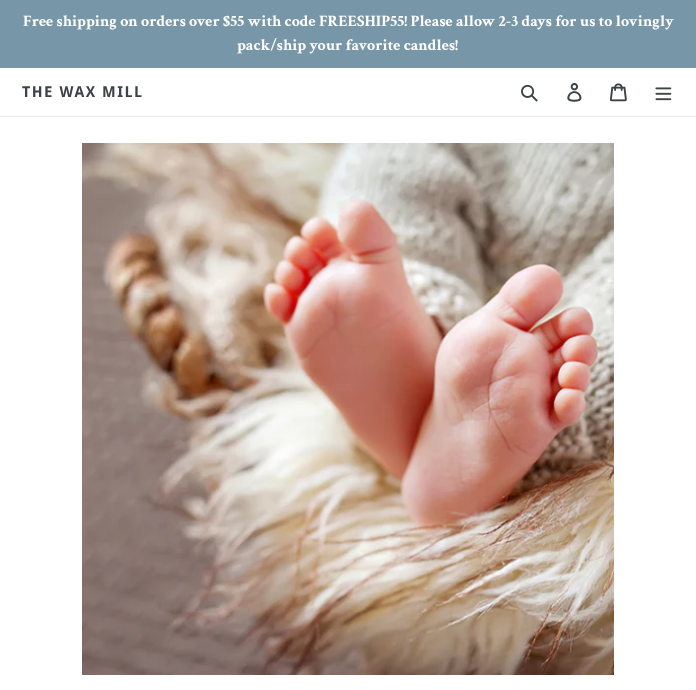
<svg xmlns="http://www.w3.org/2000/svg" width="696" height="690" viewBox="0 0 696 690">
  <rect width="100%" height="100%" fill="#ffffff"/>
  <rect x="0" y="0" width="696" height="68" fill="#7796a8"/>
  <text x="23" y="26" font-family="Crimson Text" font-size="16" font-weight="bold" fill="#ffffff">Free shipping on orders over $55 with code FREESHIP55! Please allow 2-3 days for us to lovingly</text>
  <text x="237" y="50" font-family="Crimson Text" font-size="16" font-weight="bold" fill="#ffffff">pack/ship your favorite candles!</text>
  <rect x="0" y="116" width="696" height="1" fill="#e8e9eb"/>
  <text x="22" y="97" font-family="Droid Sans" font-size="15" font-weight="bold" letter-spacing="1.5" fill="#3d4246">THE WAX MILL</text>
  <image x="521" y="84" width="17" height="18" href="img1.png"/>
  <image x="567" y="83" width="15" height="19" href="img2.png"/>
  <image x="609" y="83" width="18" height="19" href="img3.png"/>
  <image x="655" y="87" width="17" height="14" href="img4.png"/>
  <image x="82" y="143" width="532" height="532" href="img5.png"/>
</svg>
